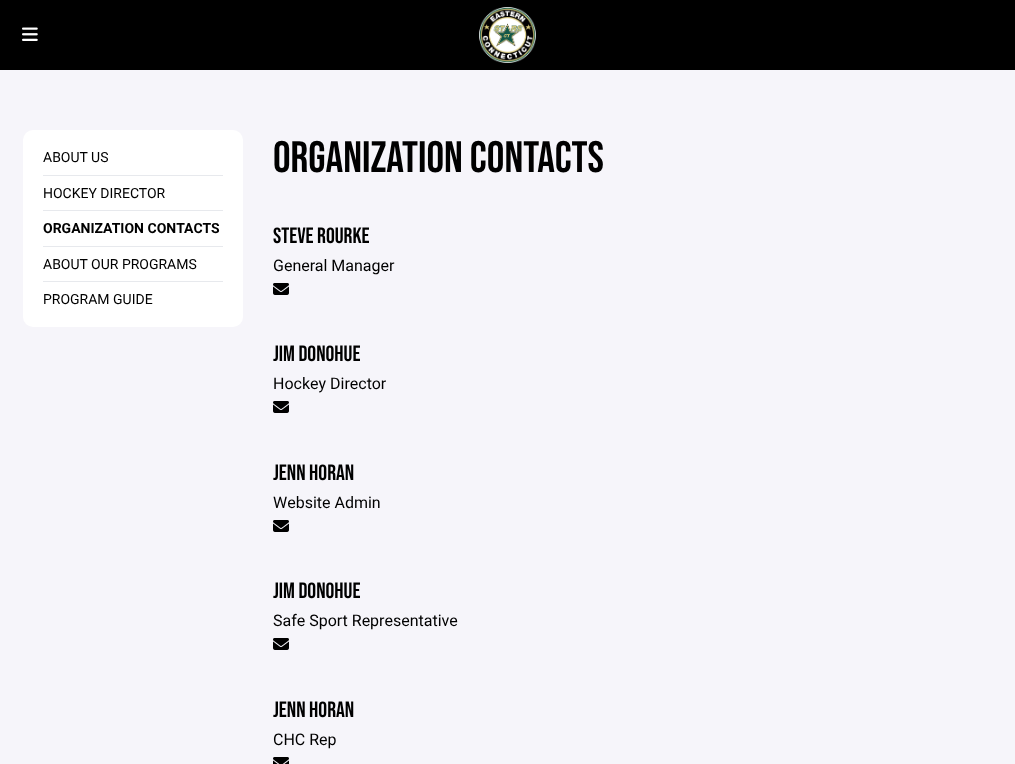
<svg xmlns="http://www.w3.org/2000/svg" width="1015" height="764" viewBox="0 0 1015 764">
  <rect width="100%" height="100%" fill="#f6f5fa"/>
  <rect x="0" y="0" width="1015" height="70" fill="#000000"/>
  <image x="22" y="27" width="16" height="14" href="img1.png"/>
  <image x="479" y="7" width="57" height="56" href="img2.png"/>
  <rect x="23" y="130" width="220" height="197" rx="10" fill="#ffffff"/>
  <text x="43" y="162" font-family="Roboto" font-size="14" fill="#000000">ABOUT US</text>
  <rect x="43" y="175" width="180" height="1" fill="#e7e9ed"/>
  <text x="43" y="198" font-family="Roboto" font-size="14" fill="#000000">HOCKEY DIRECTOR</text>
  <rect x="43" y="210" width="180" height="1" fill="#e7e9ed"/>
  <text x="43" y="233" font-family="Roboto" font-size="14" font-weight="bold" fill="#000000">ORGANIZATION CONTACTS</text>
  <rect x="43" y="246" width="180" height="1" fill="#e7e9ed"/>
  <text x="43" y="269" font-family="Roboto" font-size="14" fill="#000000">ABOUT OUR PROGRAMS</text>
  <rect x="43" y="281" width="180" height="1" fill="#e7e9ed"/>
  <text x="43" y="304" font-family="Roboto" font-size="14" fill="#000000">PROGRAM GUIDE</text>
  <text x="273" y="172" font-family="Bebas Neue" font-size="44" fill="#000000">ORGANIZATION CONTACTS</text>
  <text x="273" y="243" font-family="Bebas Neue" font-size="22" fill="#000000">STEVE ROURKE</text>
  <text x="273" y="271" font-family="Roboto" font-size="16" fill="#000000">General Manager</text>
  <image x="273" y="283" width="16" height="12" href="img3.png"/>
  <text x="273" y="361" font-family="Bebas Neue" font-size="22" fill="#000000">JIM DONOHUE</text>
  <text x="273" y="389" font-family="Roboto" font-size="16" fill="#000000">Hockey Director</text>
  <image x="273" y="401" width="16" height="12" href="img3.png"/>
  <text x="273" y="480" font-family="Bebas Neue" font-size="22" fill="#000000">JENN HORAN</text>
  <text x="273" y="508" font-family="Roboto" font-size="16" fill="#000000">Website Admin</text>
  <image x="273" y="520" width="16" height="12" href="img3.png"/>
  <text x="273" y="598" font-family="Bebas Neue" font-size="22" fill="#000000">JIM DONOHUE</text>
  <text x="273" y="626" font-family="Roboto" font-size="16" fill="#000000">Safe Sport Representative</text>
  <image x="273" y="638" width="16" height="12" href="img3.png"/>
  <text x="273" y="717" font-family="Bebas Neue" font-size="22" fill="#000000">JENN HORAN</text>
  <text x="273" y="745" font-family="Roboto" font-size="16" fill="#000000">CHC Rep</text>
  <image x="273" y="757" width="16" height="7" href="img4.png"/>
</svg>
